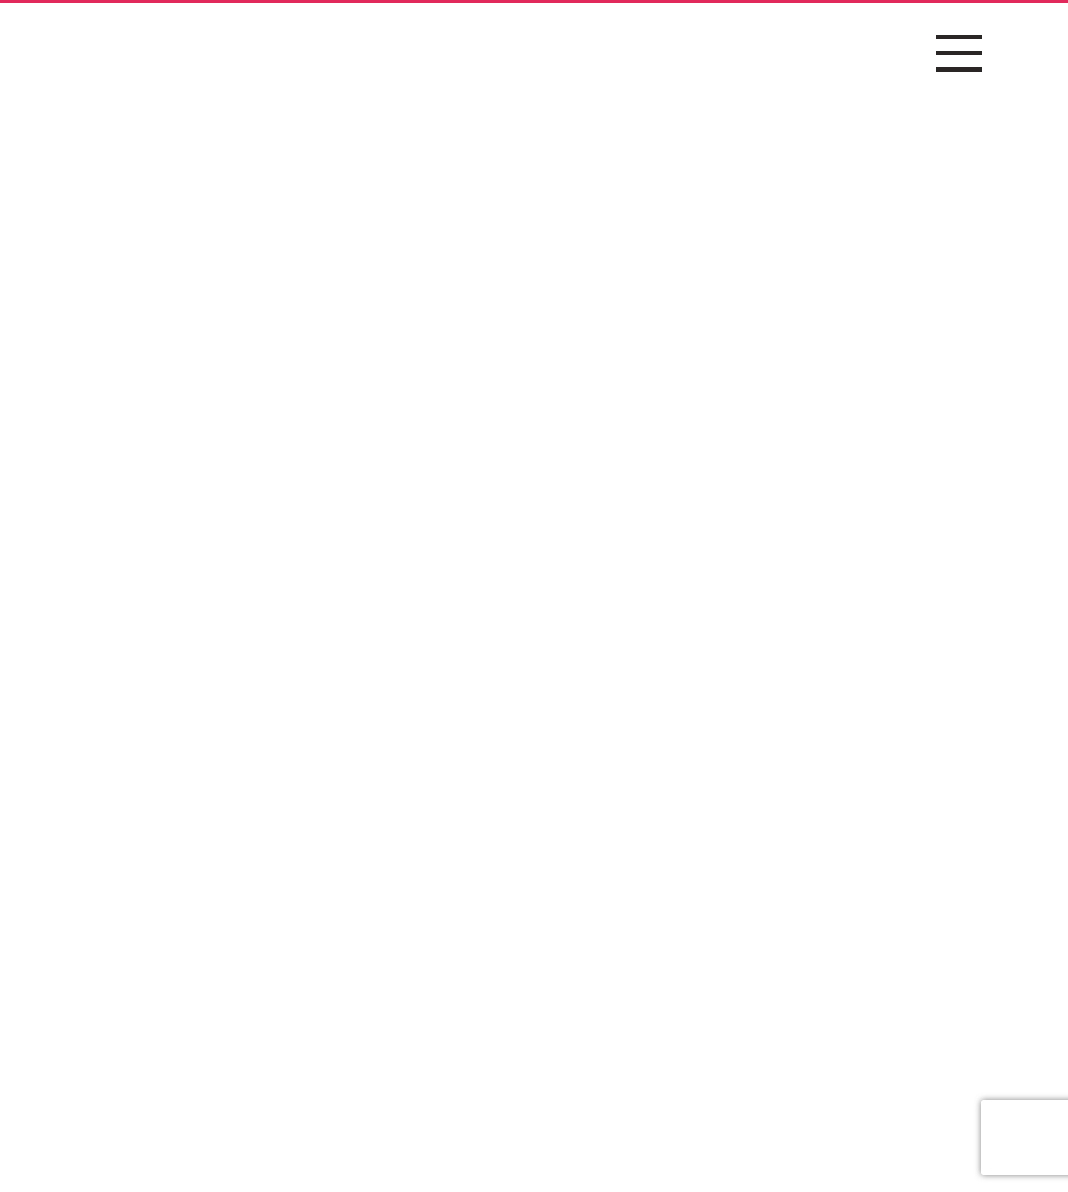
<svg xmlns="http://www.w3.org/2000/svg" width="1068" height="1192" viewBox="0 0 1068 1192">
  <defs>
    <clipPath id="clip1"><path d="M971 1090H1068V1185H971ZM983.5 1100H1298.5C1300 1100 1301 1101 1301 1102.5V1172.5C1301 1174 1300 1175 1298.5 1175H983.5C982 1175 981 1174 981 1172.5V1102.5C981 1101 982 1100 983.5 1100Z" clip-rule="evenodd"/></clipPath>
    <filter id="blur1" x="-50%" y="-200%" width="200%" height="500%"><feGaussianBlur stdDeviation="3"/></filter>
  </defs>
  <rect width="100%" height="100%" fill="#ffffff"/>
  <rect x="0" y="0" width="1068" height="3" fill="#e1295b"/>
  <rect x="936" y="51" width="46" height="4" fill="#2b2626"/>
  <rect x="936" y="35" width="46" height="4" fill="#2b2626"/>
  <rect x="936" y="67" width="46" height="5" fill="#2b2626"/>
  <g clip-path="url(#clip1)">
    <rect x="981" y="1100" width="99" height="75" rx="2.5" fill="#808080" filter="url(#blur1)"/>
  </g>
</svg>
